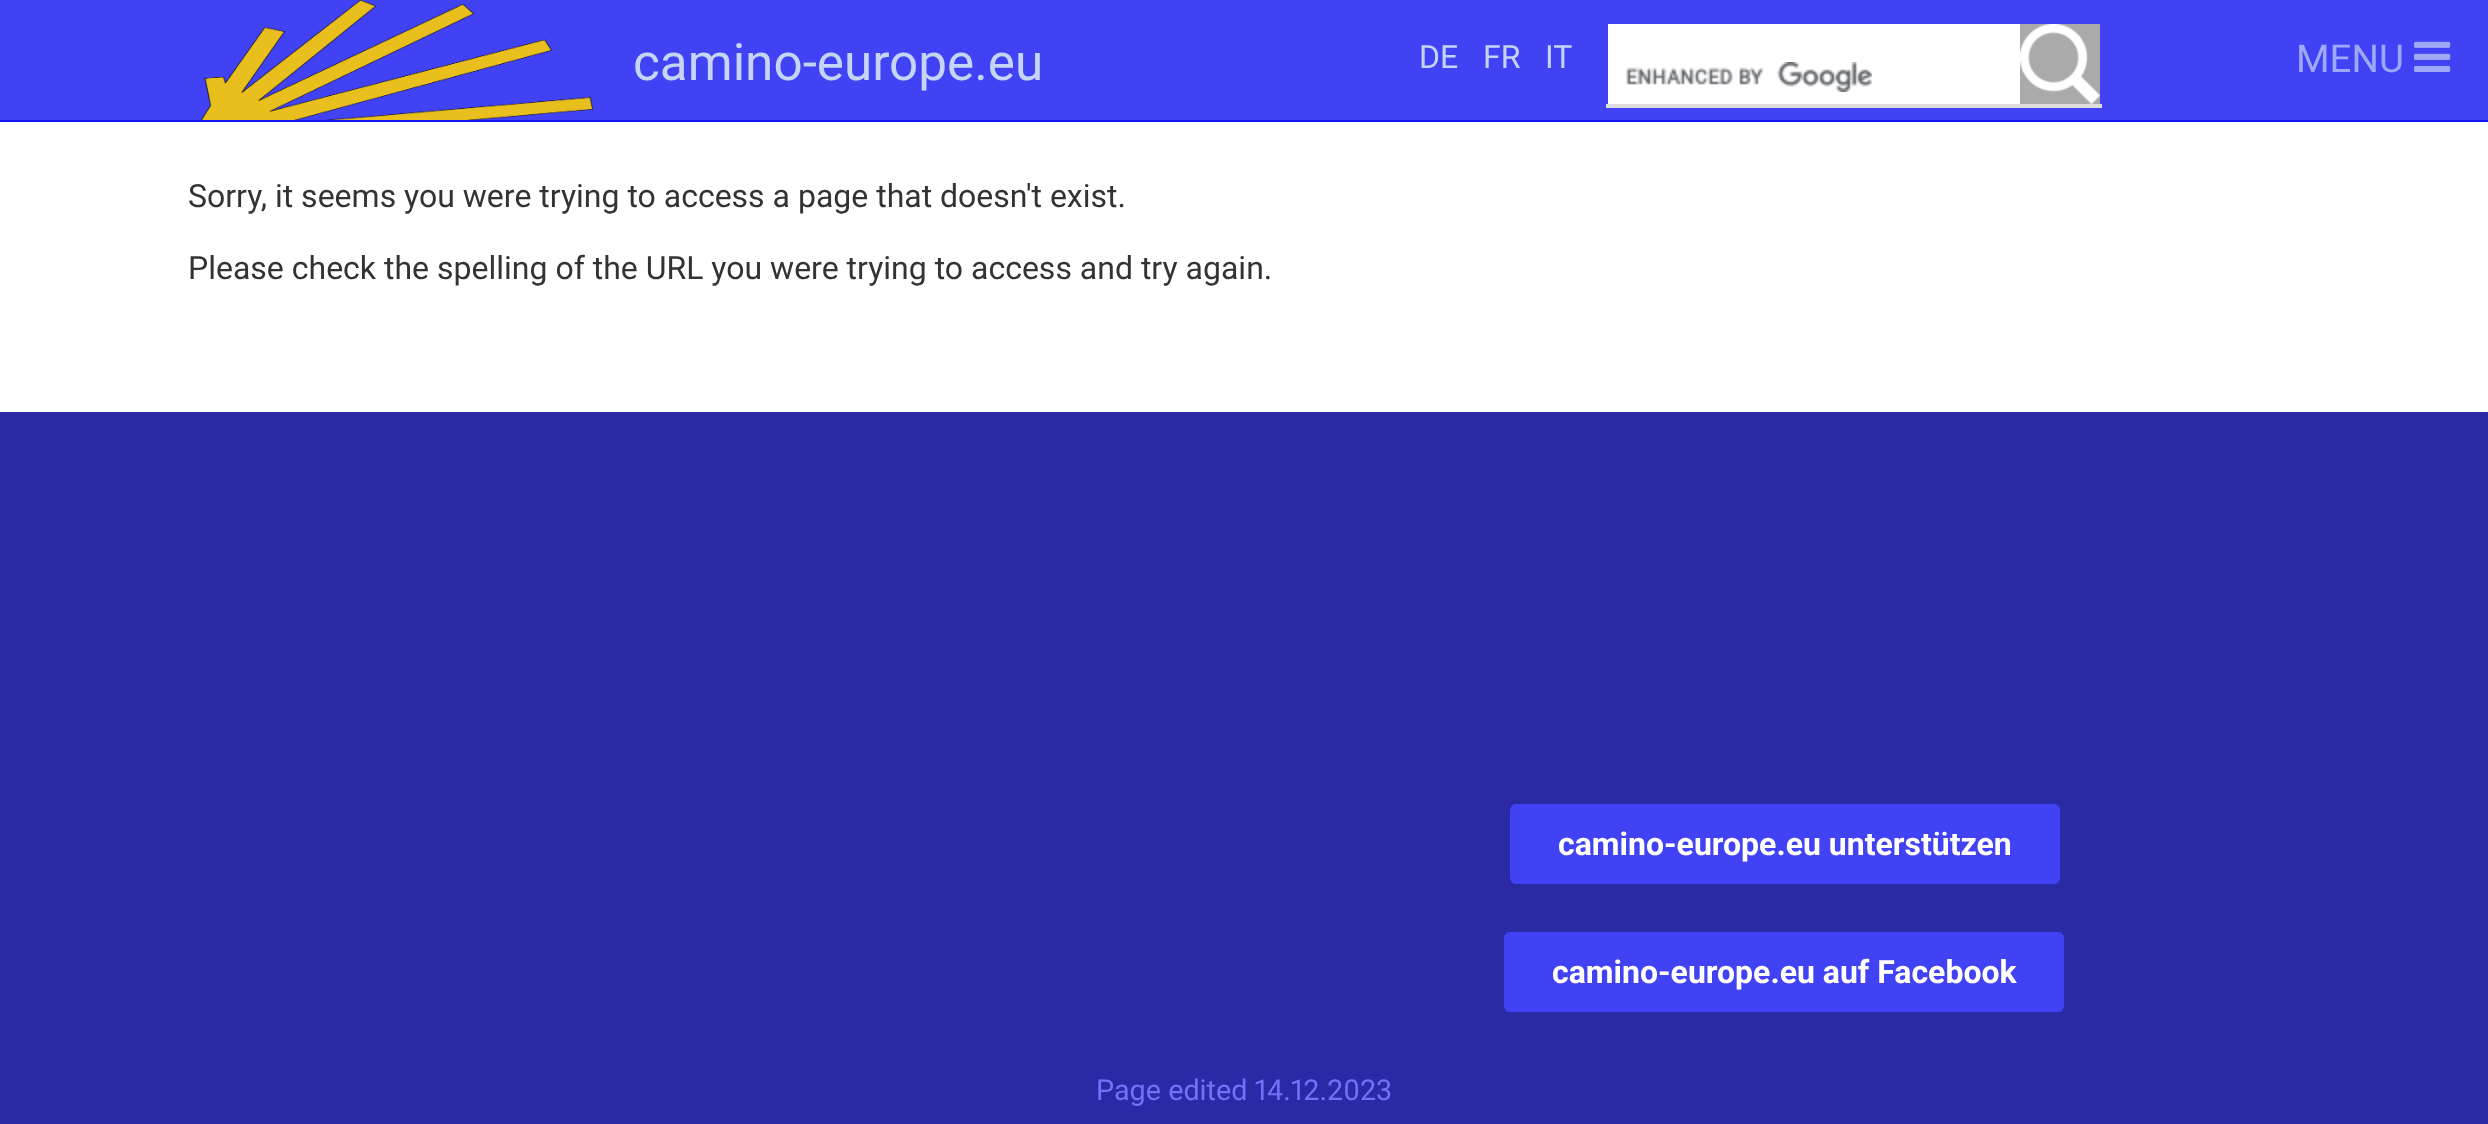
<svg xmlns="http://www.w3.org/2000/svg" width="2488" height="1124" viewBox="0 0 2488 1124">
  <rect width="100%" height="100%" fill="#ffffff"/>
  <rect x="0" y="0" width="2488" height="120" fill="#4242f5"/>
  <rect x="0" y="120" width="2488" height="2" fill="#1212f2"/>
  <image x="201" y="0" width="393" height="120" href="img1.png"/>
  <text x="633" y="80" font-family="Roboto" font-size="51.25" fill="#c6d4f7">camino-europe.eu</text>
  <text x="1419" y="68" font-family="Roboto" font-size="32" fill="#c6d4f7">DE</text>
  <text x="1483" y="68" font-family="Roboto" font-size="32" fill="#c6d4f7">FR</text>
  <text x="1545" y="68" font-family="Roboto" font-size="32" fill="#c6d4f7">IT</text>
  <rect x="1608" y="24" width="412" height="80" fill="#ffffff"/>
  <rect x="2020" y="24" width="80" height="80" fill="#aaaaaa"/>
  <image x="2020" y="24" width="80" height="80" href="img2.png"/>
  <rect x="1606" y="104" width="496" height="4" fill="#dddddd"/>
  <image x="1626" y="62" width="246" height="30" href="img3.png"/>
  <text x="2296" y="72" font-family="Roboto" font-size="38.5" fill="#9ea8f6">MENU</text>
  <image x="2414" y="41" width="37" height="31" href="img4.png"/>
  <text x="188" y="207" font-family="Roboto" font-size="32" fill="#333333">Sorry, it seems you were trying to access a page that doesn't exist.</text>
  <text x="188" y="279" font-family="Roboto" font-size="32" fill="#333333">Please check the spelling of the URL you were trying to access and try again.</text>
  <rect x="0" y="412" width="2488" height="712" fill="#2a2aa7"/>
  <rect x="1510" y="804" width="550" height="80" rx="6" fill="#4242f5"/>
  <text x="1558" y="855" font-family="Roboto" font-size="32" font-weight="bold" fill="#ffffff">camino-europe.eu unterstützen</text>
  <rect x="1504" y="932" width="560" height="80" rx="6" fill="#4242f5"/>
  <text x="1552" y="983" font-family="Roboto" font-size="32" font-weight="bold" fill="#ffffff">camino-europe.eu auf Facebook</text>
  <text x="1096" y="1100" font-family="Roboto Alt" font-size="28.75" fill="#7272f8">Page edited 14.12.2023</text>
</svg>
